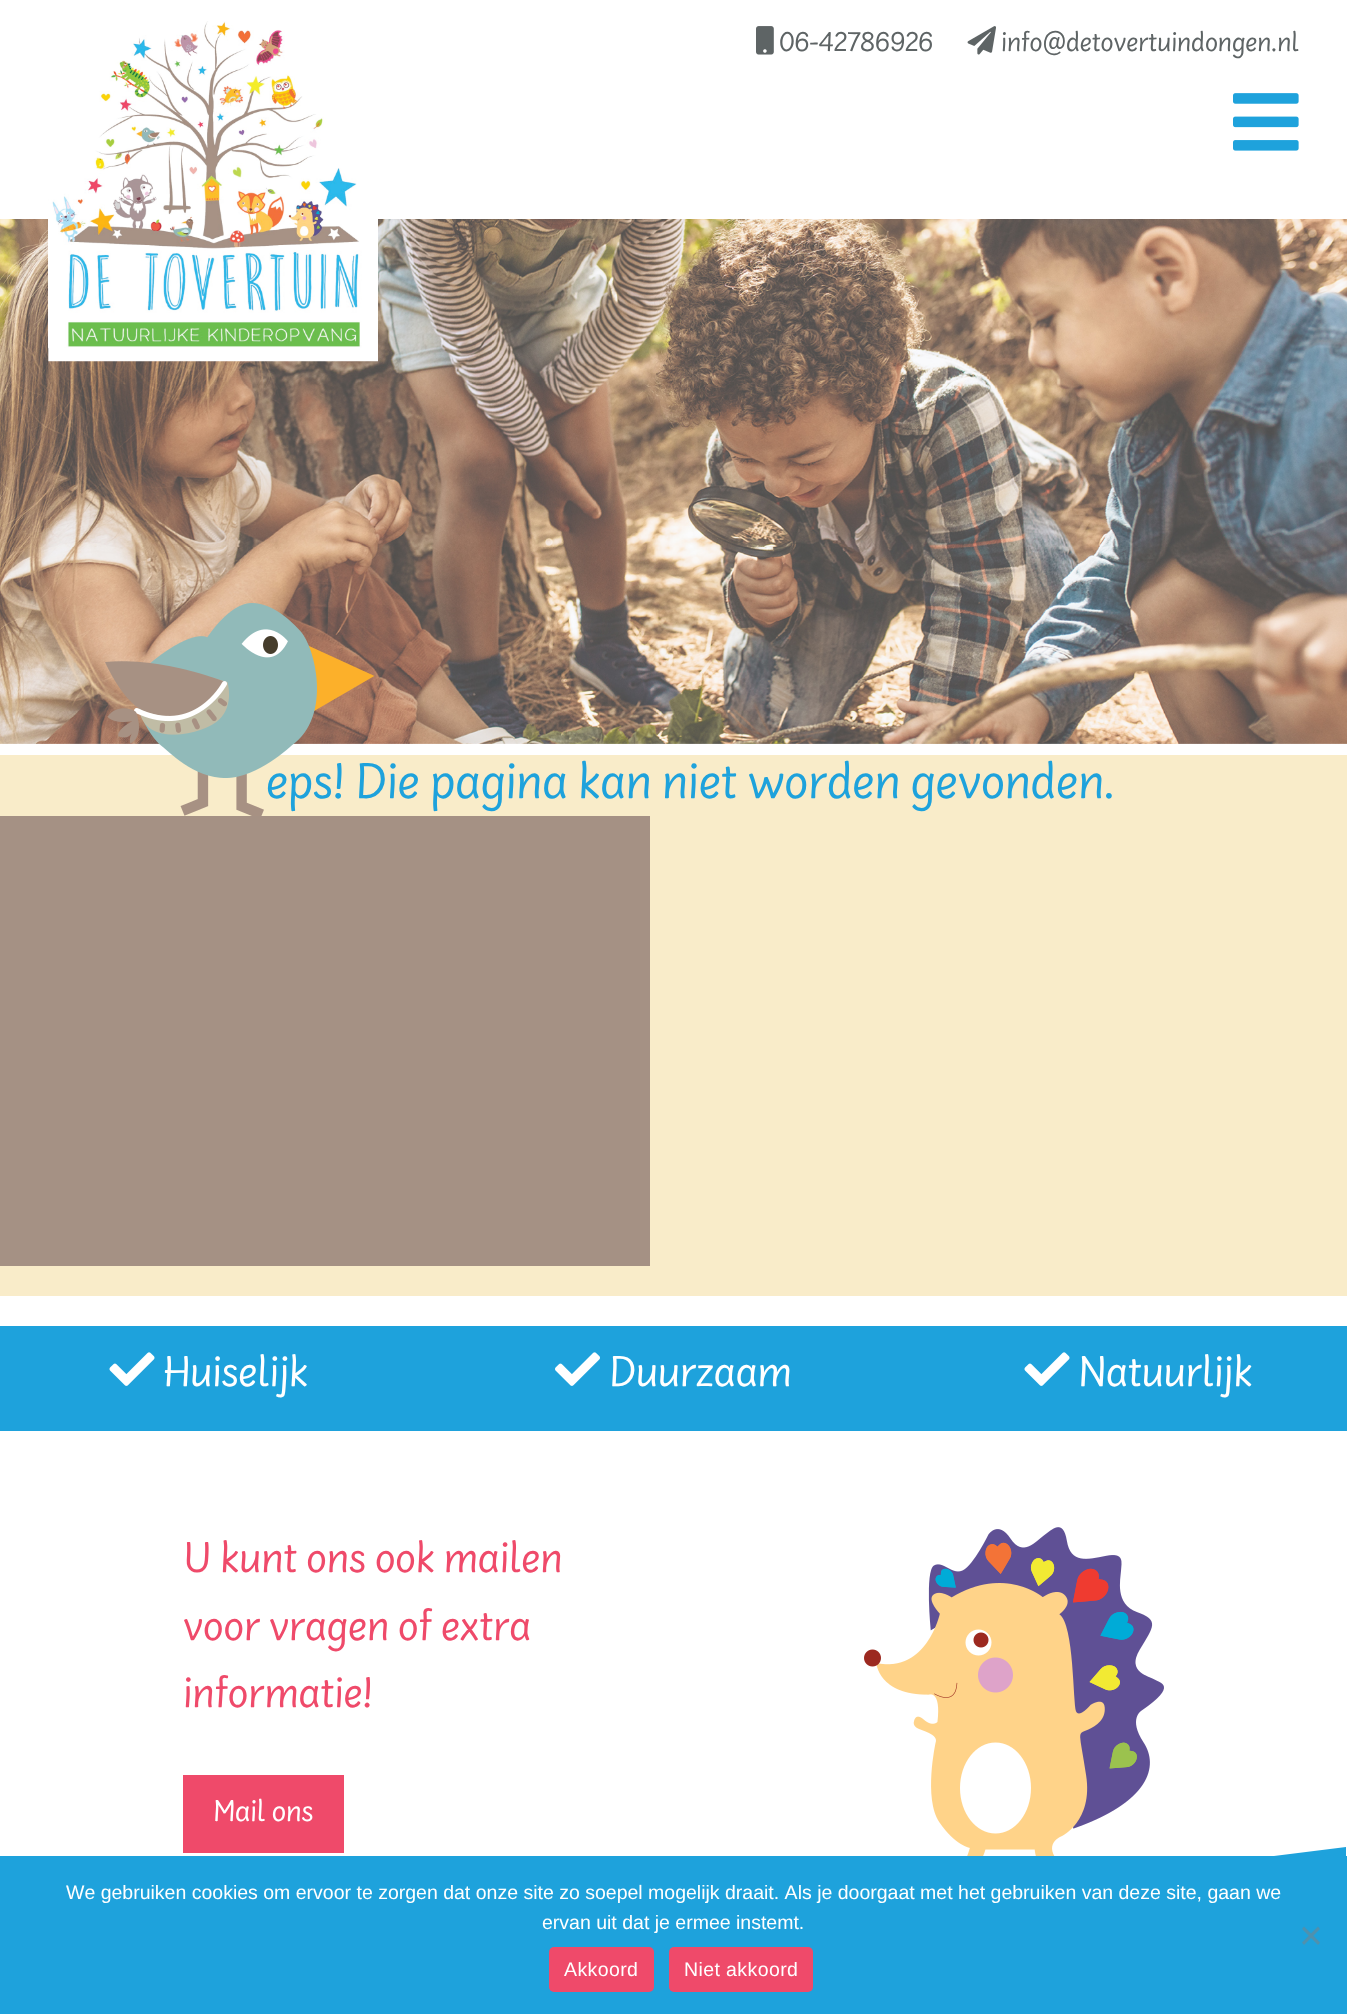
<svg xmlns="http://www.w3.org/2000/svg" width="1347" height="2014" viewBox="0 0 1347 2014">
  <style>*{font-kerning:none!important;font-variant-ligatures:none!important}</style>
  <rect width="100%" height="100%" fill="#ffffff"/>
  <image x="0" y="219" width="1347" height="525" href="img5.png"/>
  <image x="48" y="21" width="330" height="341" href="img1.png"/>
  <image x="1233" y="93" width="66" height="58" href="img2.png"/>
  <image x="756" y="26" width="18" height="29" href="img3.png"/>
  <text x="779" y="51" font-family="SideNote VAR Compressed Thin" font-size="28.5" fill="#5e6465">06-42786926</text>
  <image x="967" y="26" width="29" height="29" href="img4.png"/>
  <text x="1001" y="51" font-family="SideNote VAR Compressed Thin" font-size="28.5" fill="#5e6465">info@detovertuindongen.nl</text>
  <rect x="0" y="755" width="1347" height="541" fill="#f9ecc9"/>
  <text x="266" y="798" font-family="SideNote VAR Compressed Thin" font-size="52.5" fill="#1ea2dc">eps! Die pagina kan niet worden gevonden.</text>
  <image x="105" y="603" width="269" height="213" href="img6.png"/>
  <rect x="0" y="816" width="650" height="450" fill="#a59184"/>
  <rect x="0" y="1326" width="1347" height="105" fill="#1ea2dc"/>
  <image x="109" y="1352" width="46" height="34" href="img7.png"/>
  <text x="163" y="1386" font-family="SideNote VAR Compressed Thin" font-size="45" fill="#ffffff">Huiselijk</text>
  <image x="555" y="1352" width="45" height="34" href="img8.png"/>
  <text x="609" y="1386" font-family="SideNote VAR Compressed Thin" font-size="45" fill="#ffffff">Duurzaam</text>
  <image x="1024" y="1352" width="46" height="34" href="img7.png"/>
  <text x="1078" y="1386" font-family="SideNote VAR Compressed Thin" font-size="45" fill="#ffffff">Natuurlijk</text>
  <text x="183" y="1572" font-family="SideNote VAR Compressed Thin" font-size="45" fill="#ef4a6a">U kunt ons ook mailen</text>
  <text x="183" y="1640" font-family="SideNote VAR Compressed Thin" font-size="45" fill="#ef4a6a">voor vragen of extra</text>
  <text x="183" y="1707" font-family="SideNote VAR Compressed Thin" font-size="45" fill="#ef4a6a">informatie!</text>
  <rect x="183" y="1775" width="161" height="78" fill="#ef4a6a"/>
  <text x="213" y="1821" font-family="SideNote VAR Compressed Thin" font-size="31.5" fill="#ffffff">Mail ons</text>
  <image x="864" y="1527" width="300" height="329" href="img9.png"/>
  <path d="M1346 1847V2014L2 2013Z" fill="#1ea2dc"/>
  <rect x="0" y="1856" width="1347" height="158" fill="#1ea2dc"/>
  <text x="66" y="1899" font-family="Liberation Sans" font-size="19.5" fill="#ffffff">We gebruiken cookies om ervoor te zorgen dat onze site zo soepel mogelijk draait. Als je doorgaat met het gebruiken van deze site, gaan we</text>
  <text x="542" y="1929" font-family="Liberation Sans" font-size="19.5" fill="#ffffff">ervan uit dat je ermee instemt.</text>
  <path d="M1318 1926.5L1320 1929L1304 1945L1302 1942.5Z" fill="#4f91ae"/>
  <path d="M1302 1929L1304 1926.5L1320 1942.5L1318 1945Z" fill="#4f91ae"/>
  <rect x="549" y="1947" width="105" height="45" rx="5" fill="#ef4a6a"/>
  <text x="564" y="1976" font-family="Liberation Sans" font-size="19.5" letter-spacing="0.4" fill="#ffffff">Akkoord</text>
  <rect x="669" y="1947" width="144" height="45" rx="5" fill="#ef4a6a"/>
  <text x="684" y="1976" font-family="Liberation Sans" font-size="19.5" letter-spacing="0.4" fill="#ffffff">Niet akkoord</text>
</svg>
